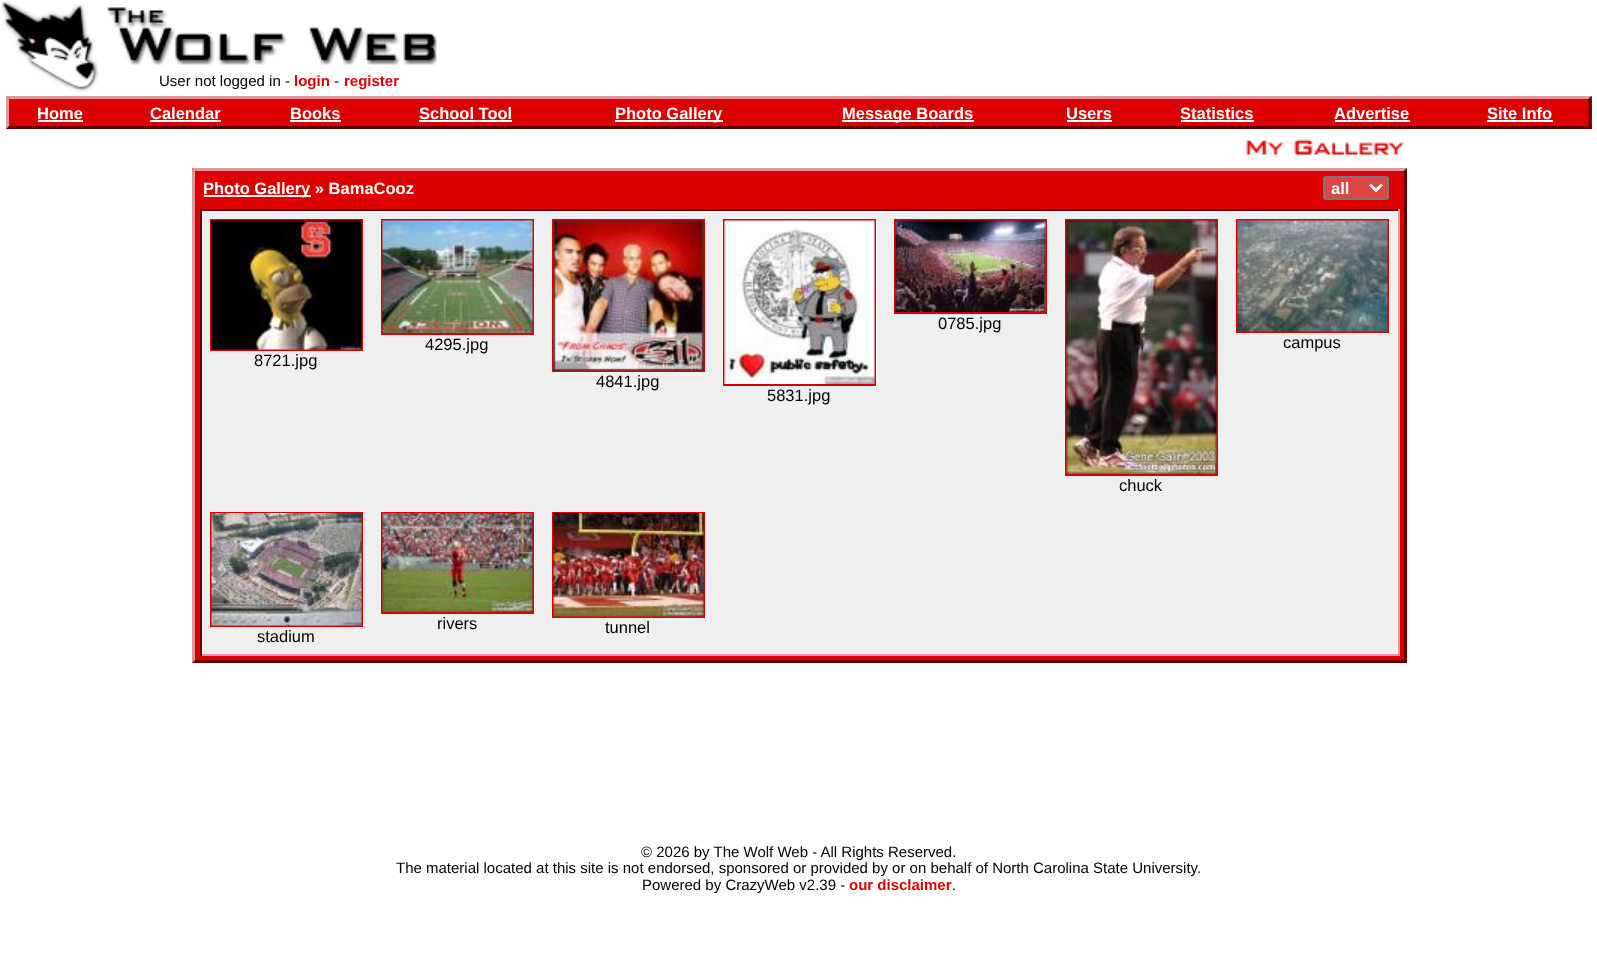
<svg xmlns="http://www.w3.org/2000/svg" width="1597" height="966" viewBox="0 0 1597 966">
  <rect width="100%" height="100%" fill="#ffffff"/>
  <image x="1" y="1" width="98" height="91" href="img1.png"/>
  <image x="107" y="7" width="330" height="58" href="img2.png"/>
  <text x="159" y="86" font-family="Liberation Sans" font-size="15" fill="#000000">User not logged in -</text>
  <text x="294" y="86" font-family="Liberation Sans" font-size="15" font-weight="bold" fill="#dd0000">login</text>
  <text x="334" y="86" font-family="Liberation Sans" font-size="15" fill="#000000">-</text>
  <text x="344" y="86" font-family="Liberation Sans" font-size="15" font-weight="bold" fill="#dd0000">register</text>
  <rect x="6" y="96" width="1586" height="33" fill="#dd0000"/>
  <path d="M6 96H1592L1588 99H9Z" fill="#dd9999"/>
  <path d="M1591.5 96V129L1588.5 126V99Z" fill="#660000"/>
  <path d="M1592 129H6L9 126H1588Z" fill="#660000"/>
  <path d="M6 129V96L9 99V126Z" fill="#dd9999"/>
  <text x="37" y="119" font-family="Liberation Sans" font-size="16.5" font-weight="bold" fill="#ffffff">Home</text>
  <rect x="38" y="120" width="45" height="2" fill="#ffffff"/>
  <text x="150" y="119" font-family="Liberation Sans" font-size="16.5" font-weight="bold" fill="#ffffff">Calendar</text>
  <rect x="150" y="120" width="71" height="2" fill="#ffffff"/>
  <text x="290" y="119" font-family="Liberation Sans" font-size="16.5" font-weight="bold" fill="#ffffff">Books</text>
  <rect x="290" y="120" width="51" height="2" fill="#ffffff"/>
  <text x="419" y="119" font-family="Liberation Sans" font-size="16.5" font-weight="bold" fill="#ffffff">School Tool</text>
  <rect x="419" y="120" width="93" height="2" fill="#ffffff"/>
  <rect x="615" y="120" width="108" height="2" fill="#ffffff"/>
  <text x="615" y="119" font-family="Liberation Sans" font-size="16.5" font-weight="bold" fill="#ffffff">Photo Gallery</text>
  <rect x="842" y="120" width="132" height="2" fill="#ffffff"/>
  <text x="842" y="119" font-family="Liberation Sans" font-size="16.5" font-weight="bold" fill="#ffffff">Message Boards</text>
  <text x="1066" y="119" font-family="Liberation Sans" font-size="16.5" font-weight="bold" fill="#ffffff">Users</text>
  <rect x="1067" y="120" width="45" height="2" fill="#ffffff"/>
  <text x="1180" y="119" font-family="Liberation Sans" font-size="16.5" font-weight="bold" fill="#ffffff">Statistics</text>
  <rect x="1181" y="120" width="73" height="2" fill="#ffffff"/>
  <text x="1334" y="119" font-family="Liberation Sans" font-size="16.5" font-weight="bold" fill="#ffffff">Advertise</text>
  <rect x="1335" y="120" width="75" height="2" fill="#ffffff"/>
  <text x="1487" y="119" font-family="Liberation Sans" font-size="16.5" font-weight="bold" fill="#ffffff">Site Info</text>
  <rect x="1487" y="120" width="66" height="2" fill="#ffffff"/>
  <image x="1246" y="139" width="159" height="16" href="img3.png"/>
  <rect x="192" y="168" width="1215" height="495" fill="#dd0000"/>
  <path d="M192 168H1407L1404 171H195Z" fill="#dd9999"/>
  <path d="M1407 168V663L1404 660V171Z" fill="#660000"/>
  <path d="M1407 663H192L195 660H1404Z" fill="#660000"/>
  <path d="M192 663V168L195 171V660Z" fill="#dd9999"/>
  <rect x="204" y="195" width="107" height="2" fill="#ffffff"/>
  <text x="203" y="194" font-family="Liberation Sans" font-size="16.5" font-weight="bold" fill="#ffffff">Photo Gallery » BamaCooz</text>
  <rect x="1324" y="177" width="64" height="22" rx="2" fill="#dd4444" stroke="#767676" stroke-width="2"/>
  <path d="M1370 184.5L1376 190.5L1382 184.5" fill="none" stroke="#ffffff" stroke-width="3"/>
  <text x="1331" y="194" font-family="Liberation Sans" font-size="16.5" font-weight="bold" fill="#ffffff">all</text>
  <rect x="202" y="211" width="1196" height="443" fill="#efefef"/>
  <rect x="200" y="209" width="1200" height="2" fill="#660000"/>
  <rect x="1398" y="209" width="2" height="447" fill="#dd9999"/>
  <rect x="200" y="654" width="1200" height="2" fill="#dd9999"/>
  <rect x="200" y="209" width="2" height="447" fill="#660000"/>
  <rect x="895" y="220" width="151" height="93" fill="none" stroke="#dd0000" stroke-width="2"/>
  <image x="895" y="220" width="151" height="92" href="img4.png"/>
  <text x="938" y="329" font-family="Liberation Sans" font-size="16.5" fill="#000000">0785.jpg</text>
  <rect x="382" y="220" width="151" height="114" fill="none" stroke="#dd0000" stroke-width="2"/>
  <image x="382" y="220" width="151" height="113" href="img5.png"/>
  <text x="425" y="350" font-family="Liberation Sans" font-size="16.5" fill="#000000">4295.jpg</text>
  <rect x="1237" y="220" width="151" height="112" fill="none" stroke="#dd0000" stroke-width="2"/>
  <image x="1237" y="220" width="151" height="112" href="img6.png"/>
  <text x="1283" y="348" font-family="Liberation Sans" font-size="16.5" fill="#000000">campus</text>
  <rect x="211" y="220" width="151" height="130" fill="none" stroke="#dd0000" stroke-width="2"/>
  <image x="211" y="220" width="151" height="130" href="img7.png"/>
  <text x="254" y="366" font-family="Liberation Sans" font-size="16.5" fill="#000000">8721.jpg</text>
  <rect x="553" y="220" width="151" height="151" fill="none" stroke="#dd0000" stroke-width="2"/>
  <image x="553" y="220" width="151" height="151" href="img8.png"/>
  <text x="596" y="387" font-family="Liberation Sans" font-size="16.5" fill="#000000">4841.jpg</text>
  <rect x="724" y="220" width="151" height="165" fill="none" stroke="#dd0000" stroke-width="2"/>
  <image x="724" y="220" width="151" height="164" href="img9.png"/>
  <text x="767" y="401" font-family="Liberation Sans" font-size="16.5" fill="#000000">5831.jpg</text>
  <rect x="1066" y="220" width="151" height="255" fill="none" stroke="#dd0000" stroke-width="2"/>
  <image x="1066" y="220" width="151" height="254" href="img10.png"/>
  <text x="1119" y="491" font-family="Liberation Sans" font-size="16.5" fill="#000000">chuck</text>
  <rect x="382" y="513" width="151" height="100" fill="none" stroke="#dd0000" stroke-width="2"/>
  <image x="382" y="513" width="151" height="99" href="img11.png"/>
  <text x="437" y="629" font-family="Liberation Sans" font-size="16.5" fill="#000000">rivers</text>
  <rect x="553" y="513" width="151" height="104" fill="none" stroke="#dd0000" stroke-width="2"/>
  <image x="553" y="513" width="151" height="104" href="img12.png"/>
  <text x="605" y="633" font-family="Liberation Sans" font-size="16.5" fill="#000000">tunnel</text>
  <rect x="211" y="513" width="151" height="113" fill="none" stroke="#dd0000" stroke-width="2"/>
  <image x="211" y="513" width="151" height="113" href="img13.png"/>
  <text x="257" y="642" font-family="Liberation Sans" font-size="16.5" fill="#000000">stadium</text>
  <text x="641" y="857" font-family="Liberation Sans" font-size="15" fill="#000000">© 2026 by The Wolf Web - All Rights Reserved.</text>
  <text x="396" y="873" font-family="Liberation Sans" font-size="15" fill="#000000">The material located at this site is not endorsed, sponsored or provided by or on behalf of North Carolina State University.</text>
  <text x="642" y="890" font-family="Liberation Sans" font-size="15" fill="#000000">Powered by CrazyWeb v2.39 -</text>
  <text x="849" y="890" font-family="Liberation Sans" font-size="15" font-weight="bold" fill="#dd0000">our disclaimer</text>
  <text x="952" y="890" font-family="Liberation Sans" font-size="15" fill="#000000">.</text>
</svg>
